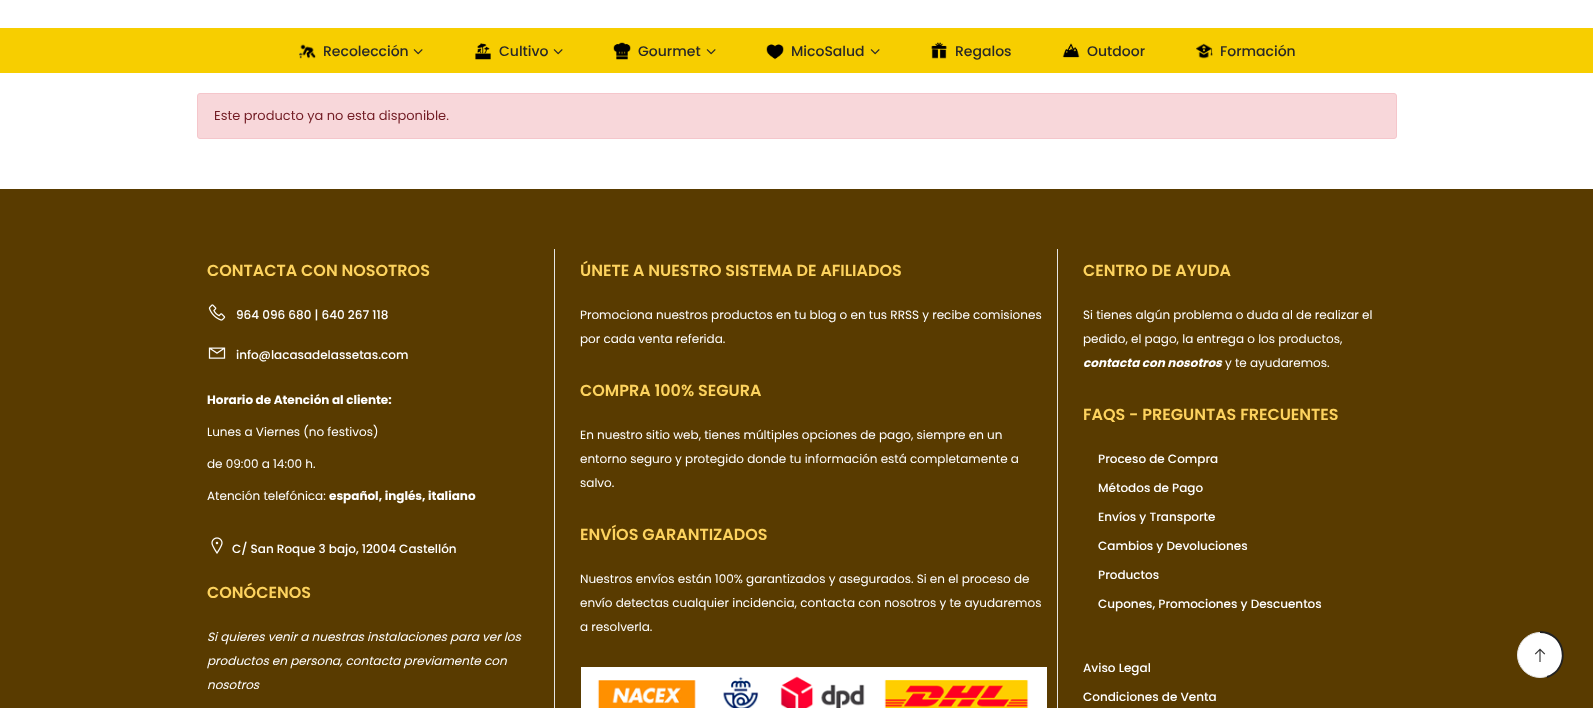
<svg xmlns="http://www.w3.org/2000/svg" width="1593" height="708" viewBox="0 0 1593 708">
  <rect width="100%" height="100%" fill="#ffffff"/>
  <rect x="0" y="28" width="1593" height="45" fill="#f7ce00"/>
  <image x="299" y="44" width="17" height="15" href="img1.png"/>
  <text x="323" y="56" font-family="Poppins" font-size="14" font-weight="500" fill="#282828">Recolección</text>
  <image x="413" y="49" width="10" height="6" href="img2.png"/>
  <image x="475" y="43" width="16" height="17" href="img3.png"/>
  <text x="499" y="56" font-family="Poppins" font-size="14" font-weight="500" fill="#282828">Cultivo</text>
  <image x="553" y="49" width="10" height="6" href="img2.png"/>
  <image x="613" y="42" width="18" height="18" href="img4.png"/>
  <text x="638" y="56" font-family="Poppins" font-size="14" font-weight="500" fill="#282828">Gourmet</text>
  <image x="706" y="49" width="10" height="6" href="img2.png"/>
  <image x="766" y="44" width="18" height="16" href="img5.png"/>
  <text x="791" y="56" font-family="Poppins" font-size="14" font-weight="500" fill="#282828">MicoSalud</text>
  <image x="870" y="49" width="10" height="6" href="img2.png"/>
  <image x="931" y="42" width="16" height="17" href="img6.png"/>
  <text x="955" y="56" font-family="Poppins" font-size="14" font-weight="500" fill="#282828">Regalos</text>
  <image x="1062" y="43" width="18" height="15" href="img7.png"/>
  <text x="1087" y="56" font-family="Poppins" font-size="14" font-weight="500" fill="#282828">Outdoor</text>
  <image x="1196" y="43" width="17" height="16" href="img8.png"/>
  <text x="1220" y="56" font-family="Poppins" font-size="14" font-weight="500" fill="#282828">Formación</text>
  <rect x="197.5" y="93.5" width="1199" height="45" rx="2.5" fill="#f8d7da" stroke="#f5c6cb"/>
  <text x="214" y="120" font-family="Poppins" font-size="13" fill="#721c24">Este producto ya no esta disponible.</text>
  <rect x="0" y="189" width="1593" height="519" fill="#593b00"/>
  <text x="207" y="276" font-family="Poppins" font-size="16" font-weight="600" fill="#fdd35e">CONTACTA CON NOSOTROS</text>
  <image x="208" y="304" width="18" height="17" href="img9.png"/>
  <text x="236" y="319" font-family="Poppins" font-size="12" font-weight="500" fill="#ffffff">964 096 680 | 640 267 118</text>
  <image x="208" y="347" width="18" height="12" href="img10.png"/>
  <text x="236" y="359" font-family="Poppins" font-size="12" font-weight="500" fill="#ffffff">info@lacasadelassetas.com</text>
  <text x="207" y="404" font-family="Poppins" font-size="12" font-weight="bold" fill="#ffffff">Horario de Atención al cliente:</text>
  <text x="207" y="436" font-family="Poppins" font-size="12" fill="#ffffff">Lunes a Viernes (no festivos)</text>
  <text x="207" y="468" font-family="Poppins" font-size="12" fill="#ffffff">de 09:00 a 14:00 h.</text>
  <text x="207" y="500" font-family="Poppins" font-size="12" fill="#ffffff">Atención telefónica:</text>
  <text x="329" y="500" font-family="Poppins" font-size="12" font-weight="bold" fill="#ffffff">español, inglés, italiano</text>
  <image x="211" y="537" width="12" height="17" href="img11.png"/>
  <text x="232" y="553" font-family="Poppins" font-size="12" font-weight="500" fill="#ffffff">C/ San Roque 3 bajo, 12004 Castellón</text>
  <text x="207" y="598" font-family="Poppins" font-size="16" font-weight="600" fill="#fdd35e">CONÓCENOS</text>
  <text x="207" y="641" font-family="Poppins" font-size="12" font-style="italic" fill="#ffffff">Si quieres venir a nuestras instalaciones para ver los</text>
  <text x="207" y="665" font-family="Poppins" font-size="12" font-style="italic" fill="#ffffff">productos en persona, contacta previamente con</text>
  <text x="207" y="689" font-family="Poppins" font-size="12" font-style="italic" fill="#ffffff">nosotros</text>
  <rect x="554" y="249" width="1" height="459" fill="#e5e5e5"/>
  <text x="580" y="276" font-family="Poppins" font-size="16" font-weight="600" fill="#fdd35e">ÚNETE A NUESTRO SISTEMA DE AFILIADOS</text>
  <text x="580" y="319" font-family="Poppins" font-size="12" fill="#ffffff">Promociona nuestros productos en tu blog o en tus RRSS y recibe comisiones</text>
  <text x="580" y="343" font-family="Poppins" font-size="12" fill="#ffffff">por cada venta referida.</text>
  <text x="580" y="396" font-family="Poppins" font-size="16" font-weight="600" fill="#fdd35e">COMPRA 100% SEGURA</text>
  <text x="580" y="439" font-family="Poppins" font-size="12" fill="#ffffff">En nuestro sitio web, tienes múltiples opciones de pago, siempre en un</text>
  <text x="580" y="463" font-family="Poppins" font-size="12" fill="#ffffff">entorno seguro y protegido donde tu información está completamente a</text>
  <text x="580" y="487" font-family="Poppins" font-size="12" fill="#ffffff">salvo.</text>
  <text x="580" y="540" font-family="Poppins" font-size="16" font-weight="600" fill="#fdd35e">ENVÍOS GARANTIZADOS</text>
  <text x="580" y="583" font-family="Poppins" font-size="12" fill="#ffffff">Nuestros envíos están 100% garantizados y asegurados. Si en el proceso de</text>
  <text x="580" y="607" font-family="Poppins" font-size="12" fill="#ffffff">envío detectas cualquier incidencia, contacta con nosotros y te ayudaremos</text>
  <text x="580" y="631" font-family="Poppins" font-size="12" fill="#ffffff">a resolverla.</text>
  <image x="581" y="667" width="466" height="41" href="img12.png"/>
  <rect x="1057" y="249" width="1" height="459" fill="#e5e5e5"/>
  <text x="1083" y="276" font-family="Poppins" font-size="16" font-weight="600" fill="#fdd35e">CENTRO DE AYUDA</text>
  <text x="1083" y="319" font-family="Poppins" font-size="12" fill="#ffffff">Si tienes algún problema o duda al de realizar el</text>
  <text x="1083" y="343" font-family="Poppins" font-size="12" fill="#ffffff">pedido, el pago, la entrega o los productos,</text>
  <text x="1083" y="367" font-family="Poppins" font-size="12" font-weight="bold" font-style="italic" fill="#ffffff">contacta con nosotros</text>
  <text x="1225" y="367" font-family="Poppins" font-size="12" fill="#ffffff">y te ayudaremos.</text>
  <text x="1083" y="420" font-family="Poppins" font-size="16" font-weight="600" fill="#fdd35e">FAQS - PREGUNTAS FRECUENTES</text>
  <text x="1098" y="463" font-family="Poppins" font-size="12" font-weight="500" fill="#ffffff">Proceso de Compra</text>
  <text x="1098" y="492" font-family="Poppins" font-size="12" font-weight="500" fill="#ffffff">Métodos de Pago</text>
  <text x="1098" y="521" font-family="Poppins" font-size="12" font-weight="500" fill="#ffffff">Envíos y Transporte</text>
  <text x="1098" y="550" font-family="Poppins" font-size="12" font-weight="500" fill="#ffffff">Cambios y Devoluciones</text>
  <text x="1098" y="579" font-family="Poppins" font-size="12" font-weight="500" fill="#ffffff">Productos</text>
  <text x="1098" y="608" font-family="Poppins" font-size="12" font-weight="500" fill="#ffffff">Cupones, Promociones y Descuentos</text>
  <text x="1083" y="672" font-family="Poppins" font-size="12" font-weight="500" fill="#ffffff">Aviso Legal</text>
  <text x="1083" y="701" font-family="Poppins" font-size="12" font-weight="500" fill="#ffffff">Condiciones de Venta</text>
  <circle cx="1540" cy="655" r="22.5" fill="#ffffff" stroke="#e7e7e7"/>
  <path d="M1540 632C1566 632 1571.5 669 1547 677" fill="none" stroke="#222222" stroke-width="1.9"/>
  <image x="1534" y="648" width="12" height="14" href="img13.png"/>
</svg>
